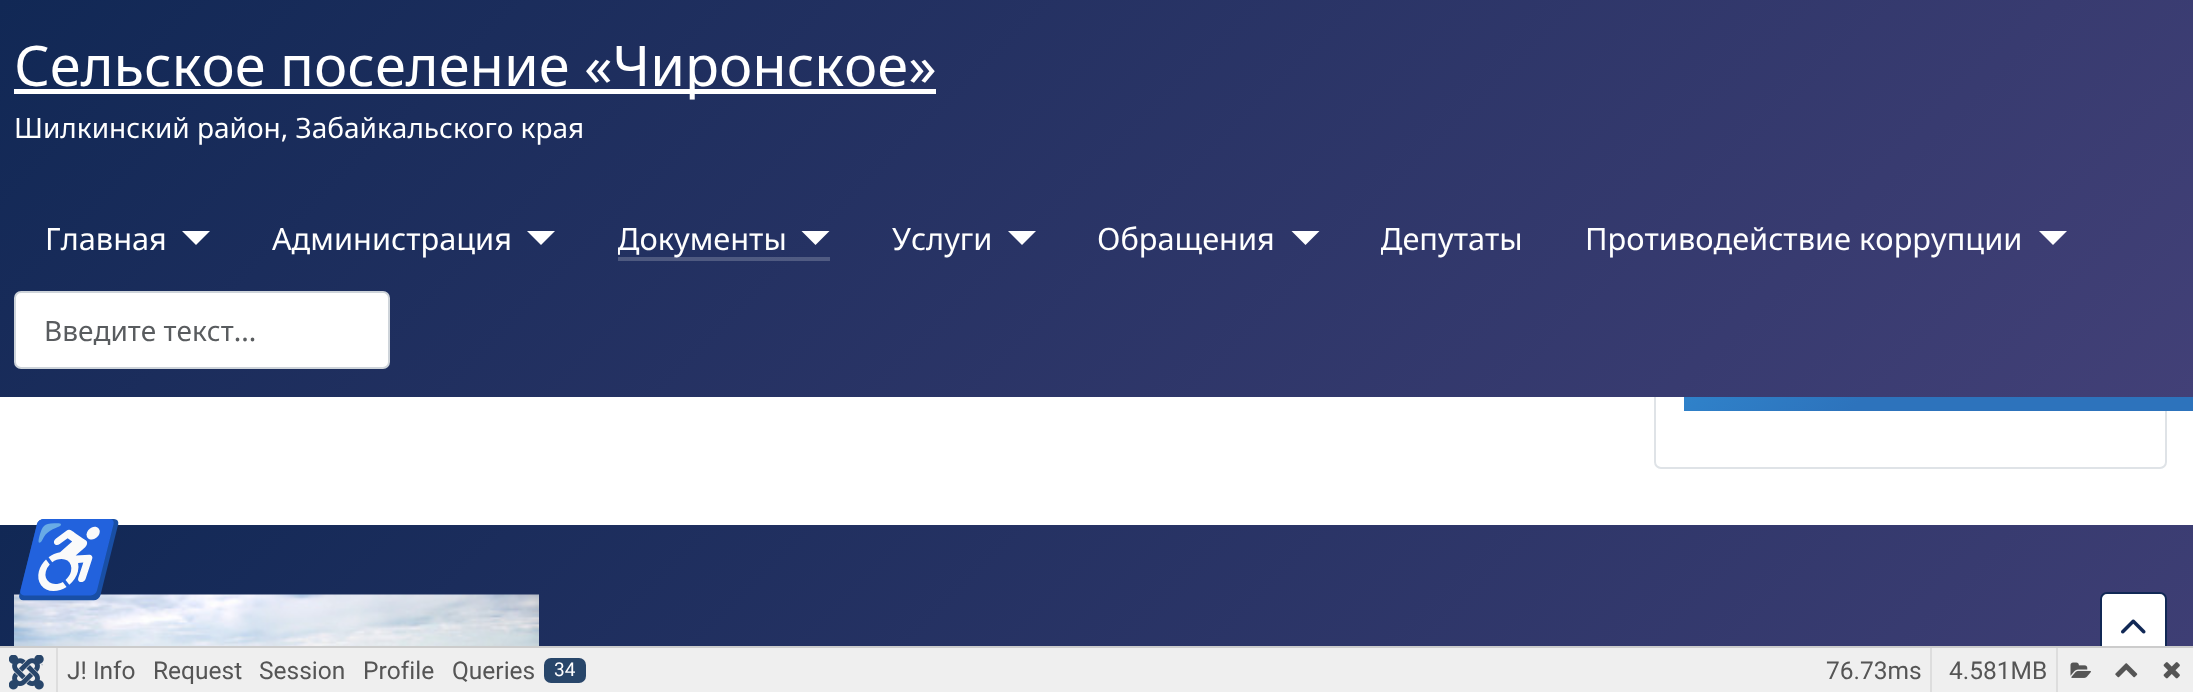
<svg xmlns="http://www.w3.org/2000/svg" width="2193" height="692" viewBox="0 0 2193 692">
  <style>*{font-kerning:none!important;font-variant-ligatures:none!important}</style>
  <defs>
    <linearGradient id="g1" gradientUnits="userSpaceOnUse" x1="1577" y1="-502" x2="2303" y2="316"><stop offset="0.26" stop-color="#38bafe"/><stop offset="0.79" stop-color="#2d73bc"/></linearGradient>
    <linearGradient id="g2" gradientUnits="userSpaceOnUse" x1="449" y1="-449" x2="1745" y2="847"><stop offset="0" stop-color="#112855"/><stop offset="1" stop-color="#424077"/></linearGradient>
    <clipPath id="clip1"><rect x="618" y="215" width="212" height="46"/></clipPath>
    <clipPath id="clip2"><rect x="1381" y="215" width="142" height="46"/></clipPath>
    <linearGradient id="g3" gradientUnits="userSpaceOnUse" x1="465" y1="60" x2="1729" y2="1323"><stop offset="0" stop-color="#112855"/><stop offset="1" stop-color="#424077"/></linearGradient>
  </defs>
  <rect width="100%" height="100%" fill="#ffffff"/>
  <rect x="1655" y="-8" width="511" height="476" rx="6" fill="none" stroke="#dfe3e7" stroke-width="2"/>
  <rect x="1684" y="397" width="509" height="14" fill="url(#g1)"/>
  <rect x="0" y="0" width="2193" height="397" fill="url(#g2)"/>
  <rect x="14" y="89" width="922" height="5" fill="#ffffff"/>
  <text x="14" y="86" font-family="Noto Sans" font-size="56" fill="#ffffff">Сельское поселение «Чиронское»</text>
  <text x="14" y="138" font-family="Noto Sans" font-size="28" fill="#ffffff">Шилкинский район, Забайкальского края</text>
  <text x="45" y="250" font-family="Noto Sans" font-size="30.75" fill="#ffffff">Главная</text>
  <path d="M182 231H210L196 245Z" fill="#ffffff"/>
  <text x="272" y="250" font-family="Noto Sans" font-size="30.75" fill="#ffffff">Администрация</text>
  <path d="M527 231H555L541 245Z" fill="#ffffff"/>
  <g clip-path="url(#clip1)">
    <text x="617" y="250" font-family="Noto Sans" font-size="30.75" fill="#ffffff">Документы</text>
  </g>
  <path d="M801.5 231H829.5L815.5 245Z" fill="#ffffff"/>
  <rect x="618" y="257" width="212" height="4" fill="#ffffff" fill-opacity="0.2"/>
  <text x="892" y="250" font-family="Noto Sans" font-size="30.75" fill="#ffffff">Услуги</text>
  <path d="M1008 231H1036L1022 245Z" fill="#ffffff"/>
  <text x="1097" y="250" font-family="Noto Sans" font-size="30.75" fill="#ffffff">Обращения</text>
  <path d="M1291.5 231H1319.5L1305.5 245Z" fill="#ffffff"/>
  <g clip-path="url(#clip2)">
    <text x="1380" y="250" font-family="Noto Sans" font-size="30.75" fill="#ffffff">Депутаты</text>
  </g>
  <text x="1585" y="250" font-family="Noto Sans" font-size="30.75" fill="#ffffff">Противодействие коррупции</text>
  <path d="M2039 231H2067L2053 245Z" fill="#ffffff"/>
  <rect x="15" y="292" width="374" height="76" rx="6" fill="#ffffff" stroke="#ced4da" stroke-width="2"/>
  <text x="44" y="341" font-family="Noto Sans" font-size="28" fill="#595c5f">Введите текст...</text>
  <rect x="0" y="525" width="2193" height="121" fill="url(#g3)"/>
  <image x="14" y="594" width="525" height="52" href="img1.png"/>
  <text x="16" y="585" font-family="Noto Color Emoji" font-size="74" font-style="italic" letter-spacing="-4" fill="#ffffff">♿</text>
  <rect x="2101" y="593" width="65" height="71" rx="6" fill="#ffffff" stroke="#112855" stroke-width="2"/>
  <image x="2121" y="619" width="25" height="15" href="img2.png"/>
  <rect x="0" y="646" width="2193" height="2" fill="#cccccc"/>
  <rect x="58" y="648" width="2135" height="44" fill="#efefef"/>
  <rect x="0" y="648" width="56" height="44" fill="#efefef"/>
  <image x="9" y="655" width="35" height="35" href="img3.png"/>
  <rect x="56" y="648" width="2" height="44" fill="#dddddd"/>
  <text x="67" y="679" font-family="Roboto" font-size="24.5" fill="#555555">J! Info</text>
  <text x="153" y="679" font-family="Roboto" font-size="24.5" fill="#555555">Request</text>
  <text x="259" y="679" font-family="Roboto" font-size="24.5" fill="#555555">Session</text>
  <text x="363" y="679" font-family="Roboto" font-size="24.5" fill="#555555">Profile</text>
  <text x="452" y="679" font-family="Roboto" font-size="24.5" fill="#555555">Queries</text>
  <rect x="544" y="658" width="42" height="25" rx="7" fill="#28466a"/>
  <text x="554" y="676" font-family="Roboto" font-size="19" fill="#ffffff">34</text>
  <rect x="1930" y="648" width="2" height="44" fill="#dddddd"/>
  <text x="1826" y="679" font-family="Roboto" font-size="24.5" fill="#555555">76.73ms</text>
  <rect x="2056" y="648" width="2" height="44" fill="#dddddd"/>
  <text x="1949" y="679" font-family="Roboto" font-size="24.5" fill="#555555">4.581MB</text>
  <image x="2070" y="662" width="21" height="16" href="img4.png"/>
  <image x="2115" y="663" width="23" height="15" href="img5.png"/>
  <image x="2163" y="662" width="17" height="17" href="img6.png"/>
</svg>
